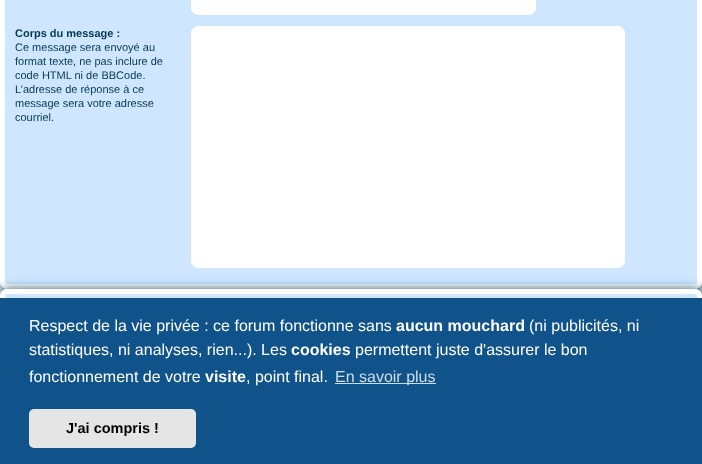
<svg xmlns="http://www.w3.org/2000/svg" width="702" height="464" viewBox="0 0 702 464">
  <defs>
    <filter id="blur1" x="-50%" y="-200%" width="200%" height="500%"><feGaussianBlur stdDeviation="6"/></filter>
  </defs>
  <rect width="100%" height="100%" fill="#ffffff"/>
  <rect x="1" y="-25" width="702" height="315" rx="7" fill="#053754" filter="url(#blur1)"/>
  <image x="0" y="0" width="702" height="289" href="img1.png"/>
  <rect x="2.5" y="-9.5" width="697" height="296" rx="4.5" fill="none" stroke="#ffffff" stroke-width="5"/>
  <rect x="191.5" y="-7.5" width="344" height="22" rx="6.5" fill="#ffffff" stroke="#ffffff"/>
  <text x="15" y="37" font-family="Liberation Sans" font-size="11" font-weight="bold" fill="#053754">Corps du message :</text>
  <text x="15" y="51" font-family="Liberation Sans" font-size="11" fill="#053754">Ce message sera envoyé au</text>
  <text x="15" y="65" font-family="Liberation Sans" font-size="11" fill="#053754">format texte, ne pas inclure de</text>
  <text x="15" y="79" font-family="Liberation Sans" font-size="11" fill="#053754">code HTML ni de BBCode.</text>
  <text x="15" y="93" font-family="Liberation Sans" font-size="11" fill="#053754">L’adresse de réponse à ce</text>
  <text x="15" y="107" font-family="Liberation Sans" font-size="11" fill="#053754">message sera votre adresse</text>
  <text x="15" y="121" font-family="Liberation Sans" font-size="11" fill="#053754">courriel.</text>
  <rect x="191.5" y="26.5" width="433" height="241" rx="6.5" fill="#ffffff" stroke="#ffffff"/>
  <rect x="1" y="290" width="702" height="52" rx="7" fill="#053754" filter="url(#blur1)"/>
  <image x="0" y="289" width="702" height="9" href="img2.png"/>
  <rect x="2.5" y="291.5" width="697" height="47" rx="4.5" fill="none" stroke="#ffffff" stroke-width="5"/>
  <rect x="0" y="298" width="702" height="166" fill="#0f538a"/>
  <text x="29" y="331" font-family="Liberation Sans" font-size="16" fill="#ffffff">Respect de la vie privée : ce forum fonctionne sans</text>
  <text x="396" y="331" font-family="Liberation Sans" font-size="16" font-weight="bold" fill="#ffffff">aucun mouchard</text>
  <text x="529" y="331" font-family="Liberation Sans" font-size="16" fill="#ffffff">(ni publicités, ni</text>
  <text x="29" y="355" font-family="Liberation Sans" font-size="16" fill="#ffffff">statistiques, ni analyses, rien...). Les</text>
  <text x="291" y="355" font-family="Liberation Sans" font-size="16" font-weight="bold" fill="#ffffff">cookies</text>
  <text x="355" y="355" font-family="Liberation Sans" font-size="16" fill="#ffffff">permettent juste d'assurer le bon</text>
  <text x="29" y="382" font-family="Liberation Sans" font-size="16" fill="#ffffff">fonctionnement de votre</text>
  <text x="205" y="382" font-family="Liberation Sans" font-size="16" font-weight="bold" fill="#ffffff">visite</text>
  <text x="246" y="382" font-family="Liberation Sans" font-size="16" fill="#ffffff">, point final.</text>
  <rect x="335" y="383" width="101" height="1" fill="#cfdde8"/>
  <text x="335" y="382" font-family="Liberation Sans" font-size="16" fill="#cfdde8">En savoir plus</text>
  <rect x="29" y="409" width="167" height="39" rx="5" fill="#e5e5e5"/>
  <text x="66" y="433" font-family="Liberation Sans" font-size="14.5" font-weight="bold" fill="#000000">J'ai compris !</text>
</svg>
